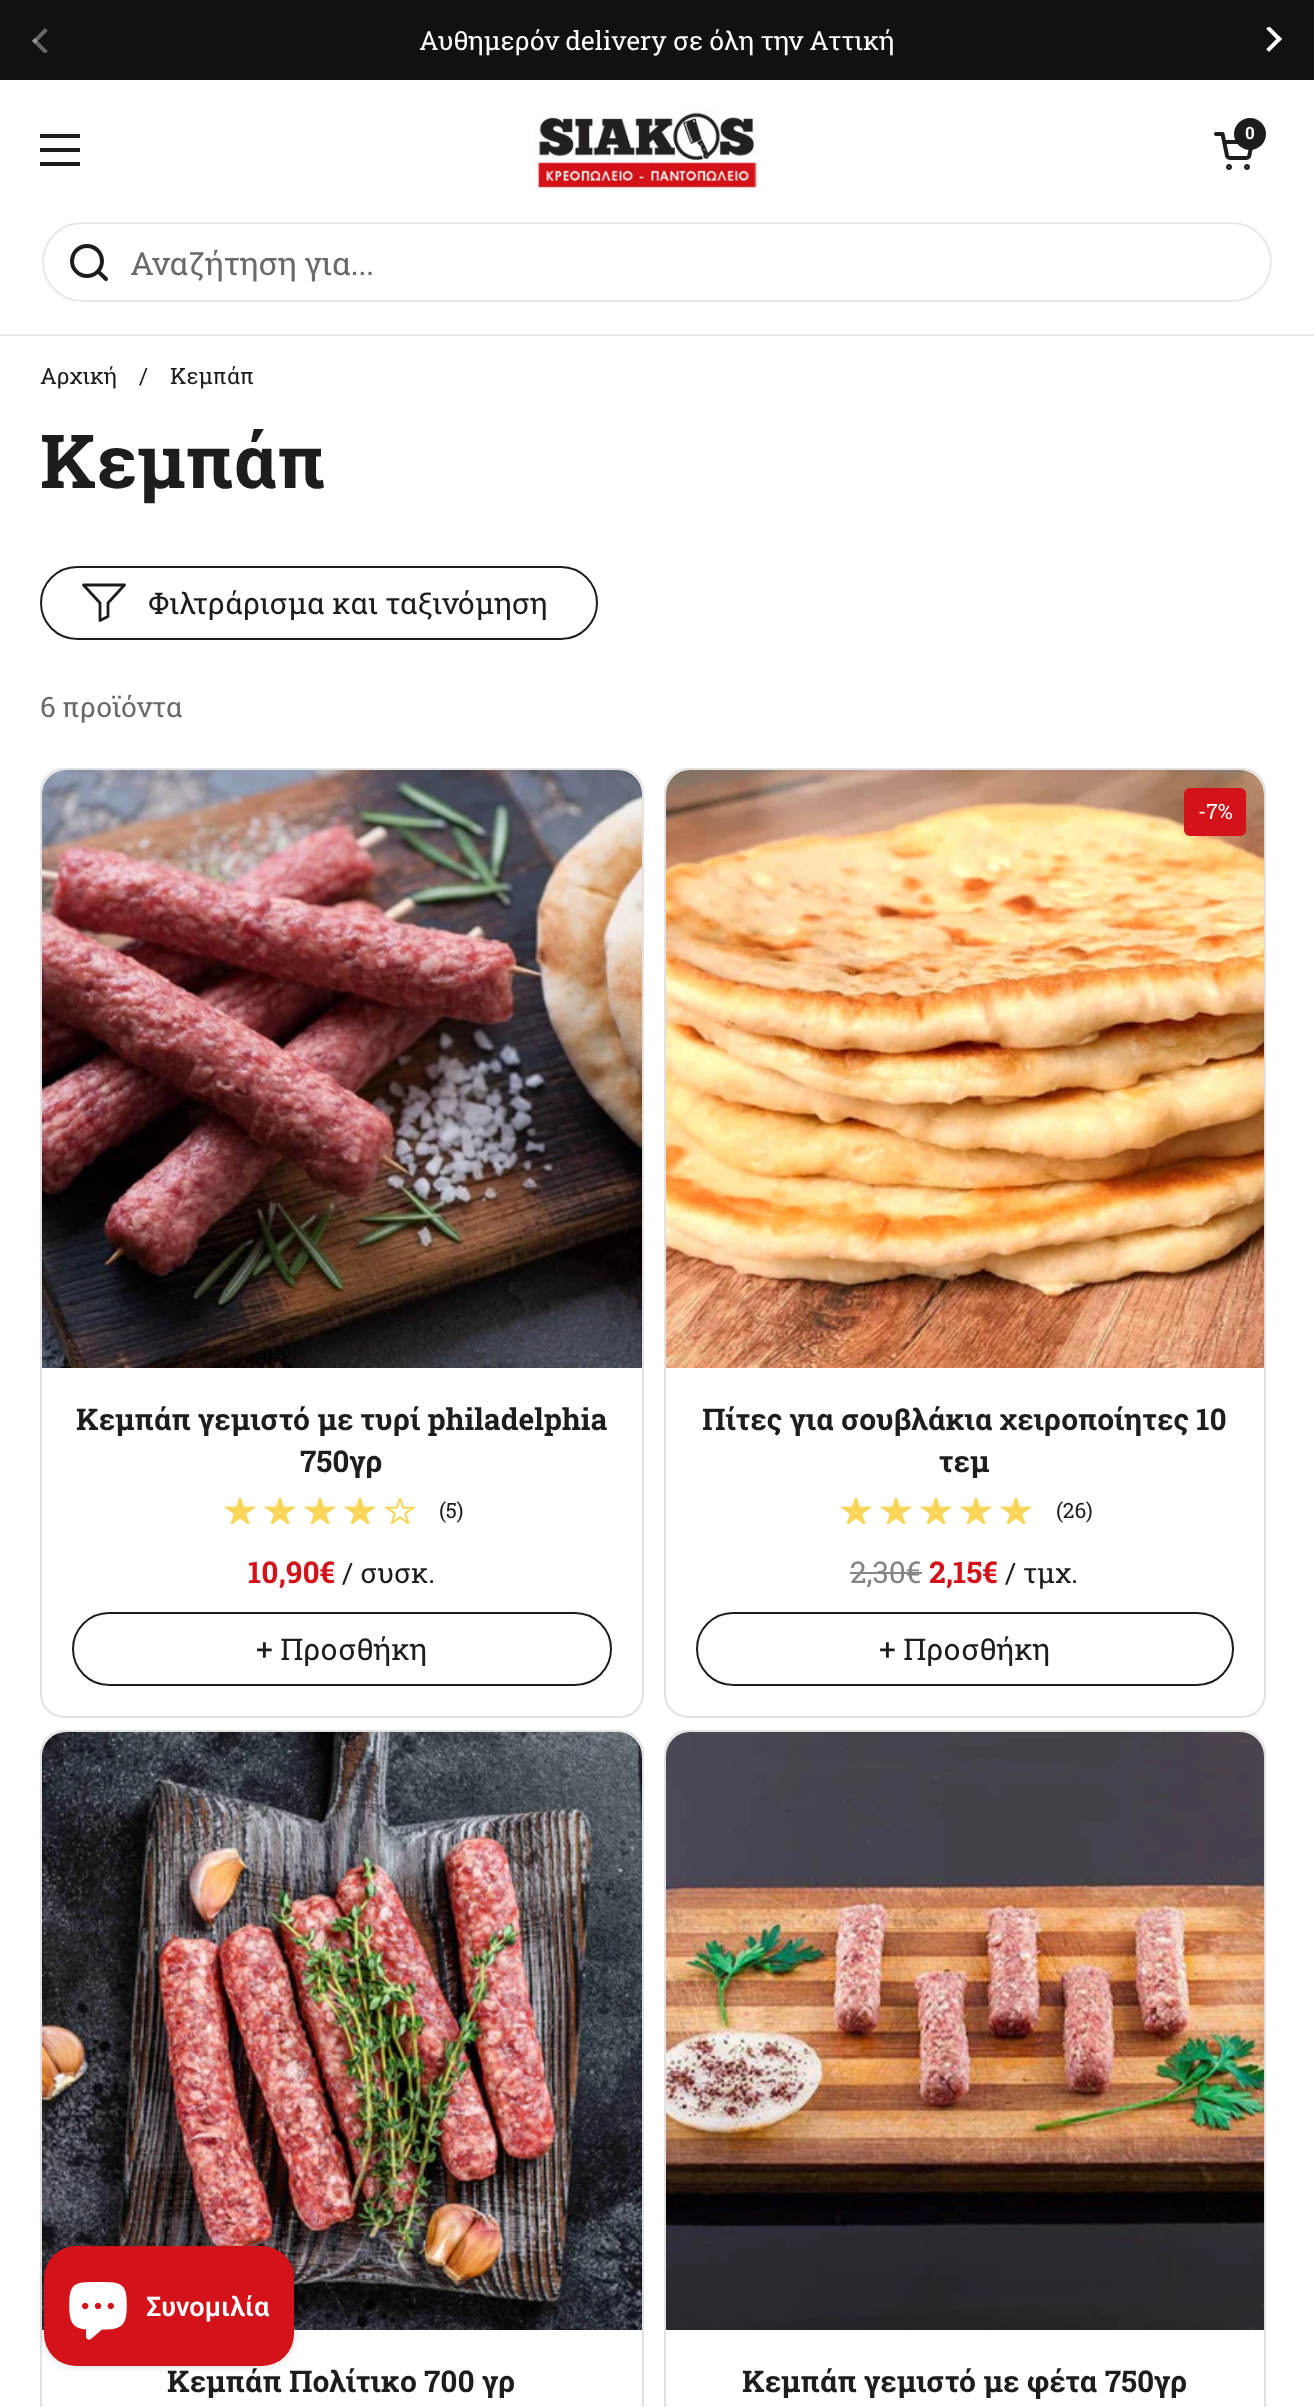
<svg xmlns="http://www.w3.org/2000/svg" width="1314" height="2407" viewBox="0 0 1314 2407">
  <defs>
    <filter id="blur1" x="-50%" y="-200%" width="200%" height="500%"><feGaussianBlur stdDeviation="5"/></filter>
  </defs>
  <rect width="100%" height="100%" fill="#ffffff"/>
  <rect x="0" y="0" width="1314" height="80" fill="#111111"/>
  <image x="32" y="28" width="16" height="25" href="img1.png"/>
  <text x="419" y="50" font-family="Roboto Slab" font-size="26.25" fill="#ffffff">Αυθημερόν delivery σε όλη την Αττική</text>
  <image x="1266" y="27" width="16" height="25" href="img2.png"/>
  <rect x="40" y="134" width="40" height="4" fill="#1d1d1d"/>
  <rect x="40" y="148" width="40" height="4" fill="#1d1d1d"/>
  <rect x="40" y="162" width="40" height="4" fill="#1d1d1d"/>
  <image x="534" y="110" width="225" height="80" href="img3.png"/>
  <image x="1214" y="132" width="39" height="38" href="img4.png"/>
  <circle cx="1250" cy="134" r="16" fill="#1d1d1d"/>
  <text x="1245" y="139" font-family="Roboto Slab" font-size="17" font-weight="bold" fill="#ffffff">0</text>
  <rect x="0" y="334" width="1314" height="2" fill="#e8e8e8"/>
  <rect x="43" y="223" width="1228" height="78" rx="39" fill="none" stroke="#e8e8e8" stroke-width="2"/>
  <circle cx="87" cy="261" r="15" fill="none" stroke="#1d1d1d" stroke-width="4"/>
  <path d="M100 270.5L99 269L96 272L97.5 273.5ZM104.5 280.5C106.5 282.5 109 279.5 107.5 277.5ZM97.5 273.5L104.5 280.5L107.5 277.5L100 270.5Z" fill="#1d1d1d"/>
  <text x="130" y="275" font-family="Roboto Slab" font-size="32" fill="#6a6a6a">Αναζήτηση για...</text>
  <text x="40" y="384" font-family="Roboto Slab" font-size="22.5" fill="#1d1d1d">Αρχική</text>
  <text x="139" y="384" font-family="Roboto Slab" font-size="22.5" fill="#1d1d1d">/</text>
  <text x="170" y="384" font-family="Roboto Slab" font-size="22.5" fill="#1d1d1d">Κεμπάπ</text>
  <text x="40" y="488" font-family="Roboto Slab" font-size="74.5" font-weight="bold" fill="#1d1d1d">Κεμπάπ</text>
  <rect x="41" y="567" width="556" height="72" rx="36" fill="none" stroke="#1d1d1d" stroke-width="2"/>
  <path d="M83.5 585H124.5L108 603V616.5L100 620.5V603Z" fill="none" stroke="#1d1d1d" stroke-width="2.8" stroke-linecap="round" stroke-linejoin="round"/>
  <text x="148" y="614" font-family="Roboto Slab" font-size="30" fill="#1d1d1d">Φιλτράρισμα και ταξινόμηση</text>
  <text x="40" y="717" font-family="Roboto Slab" font-size="28" fill="#6a6a6a">6 προϊόντα</text>
  <rect x="41" y="769" width="602" height="948" rx="23" fill="none" stroke="#e2e2e2" stroke-width="2"/>
  <image x="42" y="770" width="600" height="598" href="img5.png"/>
  <text x="76" y="1430" font-family="Roboto Slab" font-size="30" font-weight="bold" fill="#1d1d1d">Κεμπάπ γεμιστό με τυρί philadelphia</text>
  <text x="300" y="1472" font-family="Roboto Slab" font-size="30" font-weight="bold" fill="#1d1d1d">750γρ</text>
  <image x="223" y="1498" width="194" height="26" href="img6.png"/>
  <image x="230" y="1501" width="140" height="20" href="img7.png"/>
  <text x="439" y="1518" font-family="Roboto Slab" font-size="21" fill="#1d1d1d">(5)</text>
  <text x="248" y="1583" font-family="Roboto Slab" font-size="30" font-weight="bold" fill="#d4121a">10,90€</text>
  <text x="342" y="1583" font-family="Roboto Slab" font-size="28" fill="#1d1d1d">/ συσκ.</text>
  <rect x="73" y="1613" width="538" height="72" rx="36" fill="none" stroke="#1d1d1d" stroke-width="2"/>
  <text x="256" y="1660" font-family="Roboto Slab" font-size="30" fill="#1d1d1d">+ Προσθήκη</text>
  <rect x="665" y="769" width="600" height="948" rx="23" fill="none" stroke="#e2e2e2" stroke-width="2"/>
  <image x="666" y="770" width="598" height="598" href="img8.png"/>
  <rect x="1184" y="788" width="62" height="48" rx="6" fill="#d4121a"/>
  <text x="1198" y="819" font-family="Roboto Slab" font-size="21" fill="#ffffff">-7%</text>
  <text x="702" y="1430" font-family="Roboto Slab" font-size="30" font-weight="bold" fill="#1d1d1d">Πίτες για σουβλάκια χειροποίητες 10</text>
  <text x="939" y="1472" font-family="Roboto Slab" font-size="30" font-weight="bold" fill="#1d1d1d">τεμ</text>
  <image x="839" y="1498" width="194" height="26" href="img6.png"/>
  <image x="846" y="1501" width="180" height="20" href="img9.png"/>
  <text x="1056" y="1518" font-family="Roboto Slab" font-size="21" fill="#1d1d1d">(26)</text>
  <text x="850" y="1583" font-family="Roboto Slab" font-size="30" fill="#858585">2,30€</text>
  <rect x="850" y="1572" width="72" height="2" fill="#858585"/>
  <text x="929" y="1583" font-family="Roboto Slab" font-size="30" font-weight="bold" fill="#d4121a">2,15€</text>
  <text x="1005" y="1583" font-family="Roboto Slab" font-size="28" fill="#1d1d1d">/ τμχ.</text>
  <rect x="697" y="1613" width="536" height="72" rx="36" fill="none" stroke="#1d1d1d" stroke-width="2"/>
  <text x="879" y="1660" font-family="Roboto Slab" font-size="30" fill="#1d1d1d">+ Προσθήκη</text>
  <rect x="41" y="1731" width="602" height="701" rx="23" fill="none" stroke="#e2e2e2" stroke-width="2"/>
  <image x="42" y="1732" width="600" height="598" href="img10.png"/>
  <text x="167" y="2392" font-family="Roboto Slab" font-size="30" font-weight="bold" fill="#1d1d1d">Κεμπάπ Πολίτικο 700 γρ</text>
  <rect x="665" y="1731" width="600" height="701" rx="23" fill="none" stroke="#e2e2e2" stroke-width="2"/>
  <image x="666" y="1732" width="598" height="598" href="img11.png"/>
  <text x="742" y="2392" font-family="Roboto Slab" font-size="30" font-weight="bold" fill="#1d1d1d">Κεμπάπ γεμιστό με φέτα 750γρ</text>
  <rect x="44" y="2246" width="250" height="120" rx="32" fill="#000000" fill-opacity="0.15" filter="url(#blur1)"/>
  <rect x="44" y="2246" width="250" height="120" rx="32" fill="#d4121a"/>
  <image x="69" y="2282" width="58" height="58" href="img12.png"/>
  <text x="146" y="2316" font-family="Roboto" font-size="27" font-weight="600" fill="#ffffff">Συνομιλία</text>
</svg>
